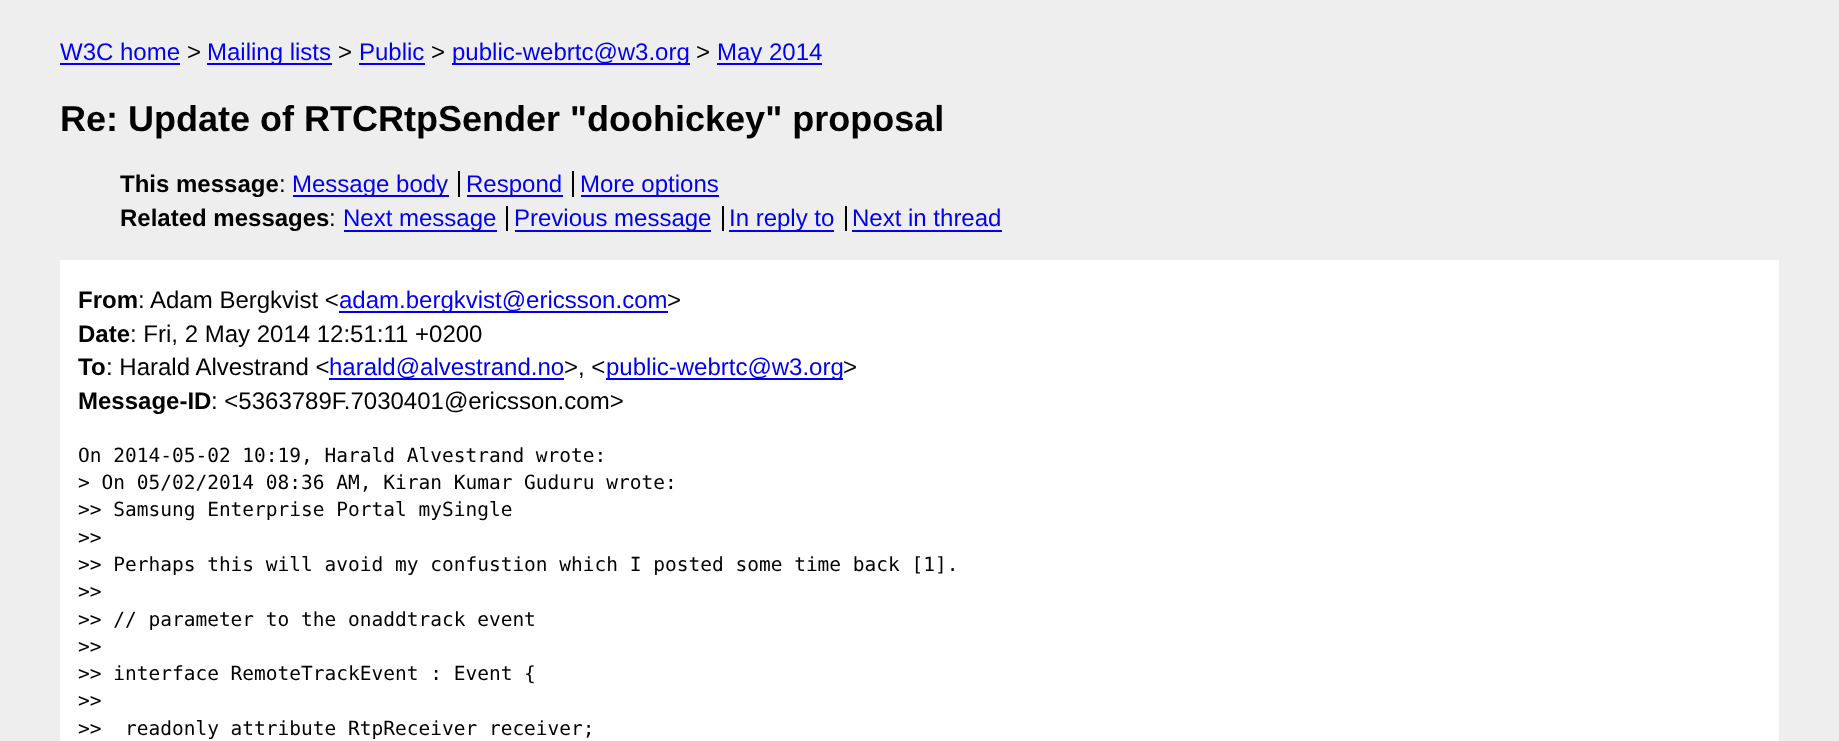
<svg xmlns="http://www.w3.org/2000/svg" width="1839" height="741" viewBox="0 0 1839 741">
  <rect width="100%" height="100%" fill="#eeeeee"/>
  <text x="60" y="60" font-family="Liberation Sans" font-size="24" fill="#0000ee">W3C home</text>
  <rect x="60" y="63" width="120" height="2" fill="#0000ee"/>
  <text x="187" y="60" font-family="Liberation Sans" font-size="24" fill="#000000">&gt;</text>
  <rect x="207" y="63" width="125" height="2" fill="#0000ee"/>
  <text x="207" y="60" font-family="Liberation Sans" font-size="24" fill="#0000ee">Mailing lists</text>
  <text x="338" y="60" font-family="Liberation Sans" font-size="24" fill="#000000">&gt;</text>
  <text x="359" y="60" font-family="Liberation Sans" font-size="24" fill="#0000ee">Public</text>
  <rect x="359" y="63" width="66" height="2" fill="#0000ee"/>
  <text x="431" y="60" font-family="Liberation Sans" font-size="24" fill="#000000">&gt;</text>
  <rect x="452" y="63" width="238" height="2" fill="#0000ee"/>
  <text x="452" y="60" font-family="Liberation Sans" font-size="24" fill="#0000ee">public-webrtc@w3.org</text>
  <text x="696" y="60" font-family="Liberation Sans" font-size="24" fill="#000000">&gt;</text>
  <rect x="717" y="63" width="105" height="2" fill="#0000ee"/>
  <text x="717" y="60" font-family="Liberation Sans" font-size="24" fill="#0000ee">May 2014</text>
  <text x="60" y="131" font-family="Liberation Sans" font-size="36" font-weight="bold" fill="#000000">Re: Update of RTCRtpSender "doohickey" proposal</text>
  <text x="120" y="192" font-family="Liberation Sans" font-size="24" font-weight="bold" fill="#000000">This message</text>
  <text x="279" y="192" font-family="Liberation Sans" font-size="24" fill="#000000">:</text>
  <rect x="293" y="195" width="156" height="2" fill="#0000ee"/>
  <text x="292" y="192" font-family="Liberation Sans" font-size="24" fill="#0000ee">Message body</text>
  <rect x="467" y="195" width="96" height="2" fill="#0000ee"/>
  <text x="466" y="192" font-family="Liberation Sans" font-size="24" fill="#0000ee">Respond</text>
  <rect x="458" y="171" width="2" height="26" fill="#000000"/>
  <rect x="581" y="195" width="138" height="2" fill="#0000ee"/>
  <text x="580" y="192" font-family="Liberation Sans" font-size="24" fill="#0000ee">More options</text>
  <rect x="572" y="171" width="2" height="26" fill="#000000"/>
  <text x="120" y="226" font-family="Liberation Sans" font-size="24" font-weight="bold" fill="#000000">Related messages</text>
  <text x="329" y="226" font-family="Liberation Sans" font-size="24" fill="#000000">:</text>
  <rect x="344" y="230" width="153" height="2" fill="#0000ee"/>
  <text x="343" y="226" font-family="Liberation Sans" font-size="24" fill="#0000ee">Next message</text>
  <rect x="515" y="230" width="196" height="2" fill="#0000ee"/>
  <text x="514" y="226" font-family="Liberation Sans" font-size="24" fill="#0000ee">Previous message</text>
  <rect x="506" y="206" width="2" height="25" fill="#000000"/>
  <rect x="729" y="230" width="105" height="2" fill="#0000ee"/>
  <text x="729" y="226" font-family="Liberation Sans" font-size="24" fill="#0000ee">In reply to</text>
  <rect x="722" y="206" width="2" height="25" fill="#000000"/>
  <text x="852" y="226" font-family="Liberation Sans" font-size="24" fill="#0000ee">Next in thread</text>
  <rect x="845" y="206" width="2" height="25" fill="#000000"/>
  <rect x="852" y="230" width="150" height="2" fill="#0000ee"/>
  <rect x="60" y="260" width="1719" height="481" fill="#ffffff"/>
  <text x="78" y="308" font-family="Liberation Sans" font-size="24" font-weight="bold" fill="#000000">From</text>
  <text x="138" y="308" font-family="Liberation Sans" font-size="24" fill="#000000">: Adam Bergkvist &lt;</text>
  <rect x="339" y="311" width="329" height="2" fill="#0000ee"/>
  <text x="339" y="308" font-family="Liberation Sans" font-size="24" fill="#0000ee">adam.bergkvist@ericsson.com</text>
  <text x="667" y="308" font-family="Liberation Sans" font-size="24" fill="#000000">&gt;</text>
  <text x="78" y="342" font-family="Liberation Sans" font-size="24" font-weight="bold" fill="#000000">Date</text>
  <text x="130" y="342" font-family="Liberation Sans" font-size="24" fill="#000000">: Fri, 2 May 2014 12:51:11 +0200</text>
  <text x="78" y="375" font-family="Liberation Sans" font-size="24" font-weight="bold" fill="#000000">To</text>
  <text x="106" y="375" font-family="Liberation Sans" font-size="24" fill="#000000">: Harald Alvestrand &lt;</text>
  <rect x="329" y="378" width="235" height="2" fill="#0000ee"/>
  <text x="329" y="375" font-family="Liberation Sans" font-size="24" fill="#0000ee">harald@alvestrand.no</text>
  <text x="564" y="375" font-family="Liberation Sans" font-size="24" fill="#000000">&gt;, &lt;</text>
  <rect x="606" y="378" width="237" height="2" fill="#0000ee"/>
  <text x="606" y="375" font-family="Liberation Sans" font-size="24" fill="#0000ee">public-webrtc@w3.org</text>
  <text x="843" y="375" font-family="Liberation Sans" font-size="24" fill="#000000">&gt;</text>
  <text x="78" y="409" font-family="Liberation Sans" font-size="24" font-weight="bold" fill="#000000">Message-ID</text>
  <text x="211" y="409" font-family="Liberation Sans" font-size="24" fill="#000000">: &lt;5363789F.7030401@ericsson.com&gt;</text>
  <text x="78" y="462" font-family="DejaVu Sans Mono" font-size="19.5" fill="#000000">On 2014-05-02 10:19, Harald Alvestrand wrote:</text>
  <text x="78" y="489" font-family="DejaVu Sans Mono" font-size="19.5" fill="#000000">&gt; On 05/02/2014 08:36 AM, Kiran Kumar Guduru wrote:</text>
  <text x="78" y="516" font-family="DejaVu Sans Mono" font-size="19.5" fill="#000000">&gt;&gt; Samsung Enterprise Portal mySingle</text>
  <text x="78" y="544" font-family="DejaVu Sans Mono" font-size="19.5" fill="#000000">&gt;&gt;</text>
  <text x="78" y="571" font-family="DejaVu Sans Mono" font-size="19.5" fill="#000000">&gt;&gt; Perhaps this will avoid my confustion which I posted some time back [1].</text>
  <text x="78" y="598" font-family="DejaVu Sans Mono" font-size="19.5" fill="#000000">&gt;&gt;</text>
  <text x="78" y="626" font-family="DejaVu Sans Mono" font-size="19.5" fill="#000000">&gt;&gt; // parameter to the onaddtrack event</text>
  <text x="78" y="653" font-family="DejaVu Sans Mono" font-size="19.5" fill="#000000">&gt;&gt;</text>
  <text x="78" y="680" font-family="DejaVu Sans Mono" font-size="19.5" fill="#000000">&gt;&gt; interface RemoteTrackEvent : Event {</text>
  <text x="78" y="707" font-family="DejaVu Sans Mono" font-size="19.5" fill="#000000">&gt;&gt;</text>
  <text x="78" y="735" font-family="DejaVu Sans Mono" font-size="19.5" fill="#000000" xml:space="preserve">&gt;&gt;  readonly attribute RtpReceiver receiver;</text>
</svg>
